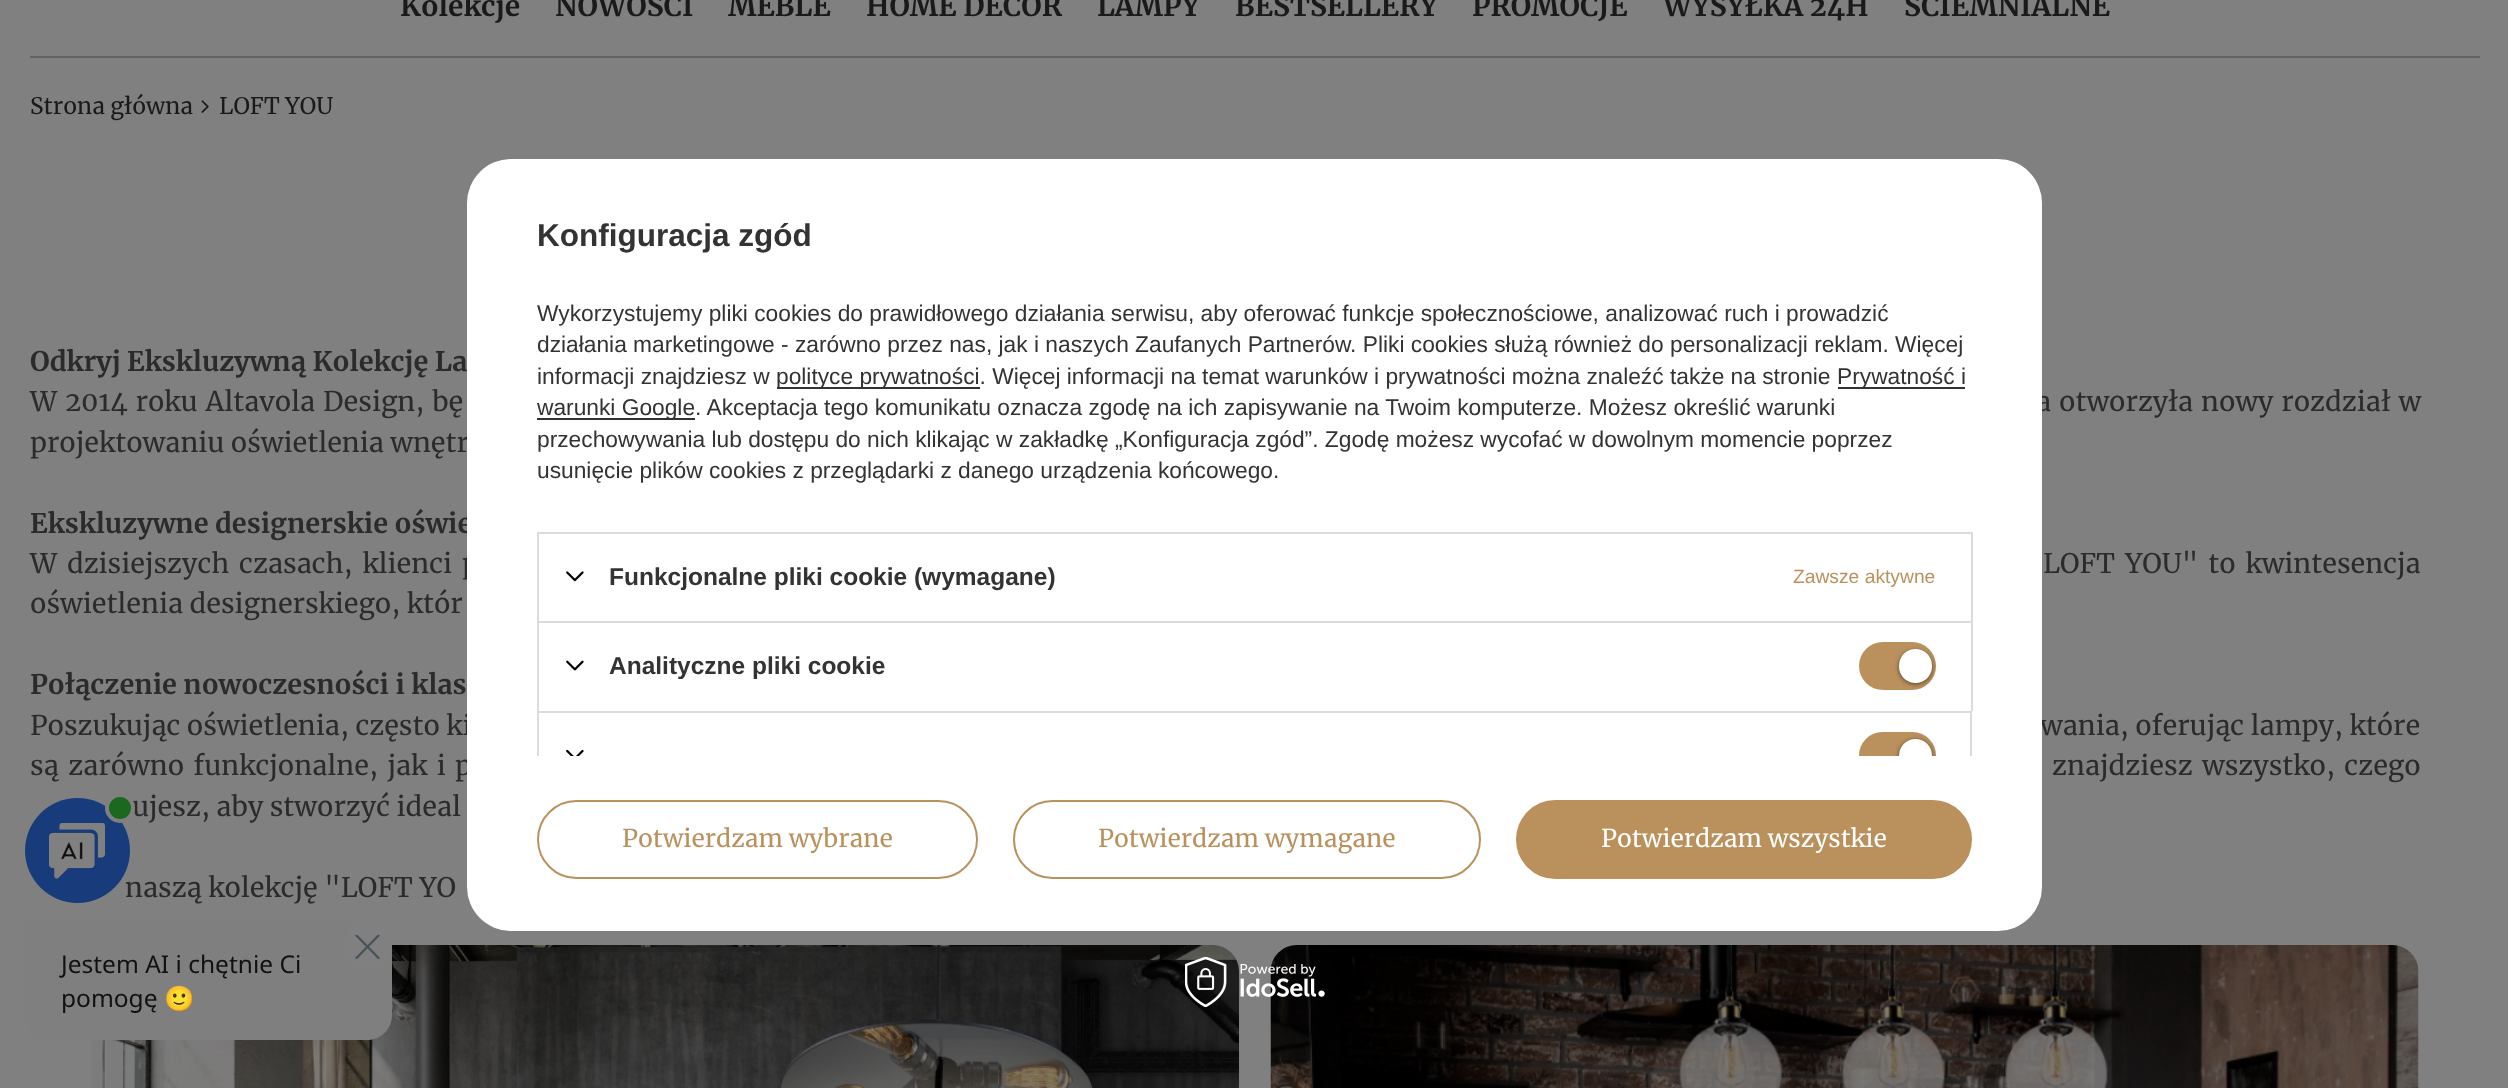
<svg xmlns="http://www.w3.org/2000/svg" width="2508" height="1088" viewBox="0 0 2508 1088">
  <defs>
    <filter id="blur1" x="-50%" y="-200%" width="200%" height="500%"><feGaussianBlur stdDeviation="2.5"/></filter>
    <clipPath id="clip1"><rect x="520" y="212" width="1470" height="544"/></clipPath>
    <clipPath id="clip2"><rect x="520" y="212" width="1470" height="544"/></clipPath>
    <clipPath id="clip3"><rect x="355" y="935" width="25" height="24"/></clipPath>
  </defs>
  <rect width="100%" height="100%" fill="#808080"/>
  <rect x="30" y="56" width="2450" height="2" fill="#626464"/>
  <text x="400" y="16" font-family="Merriweather" font-size="28" font-weight="bold" fill="#1a1a1a">Kolekcje</text>
  <text x="555" y="16" font-family="Merriweather" font-size="28" font-weight="bold" fill="#1a1a1a">NOWOŚCI</text>
  <text x="728" y="16" font-family="Merriweather" font-size="28" font-weight="bold" fill="#1a1a1a">MEBLE</text>
  <text x="866" y="16" font-family="Merriweather" font-size="28" font-weight="bold" fill="#1a1a1a">HOME DECOR</text>
  <text x="1097" y="16" font-family="Merriweather" font-size="28" font-weight="bold" fill="#1a1a1a">LAMPY</text>
  <text x="1235" y="16" font-family="Merriweather" font-size="28" font-weight="bold" fill="#1a1a1a">BESTSELLERY</text>
  <text x="1472" y="16" font-family="Merriweather" font-size="28" font-weight="bold" fill="#1a1a1a">PROMOCJE</text>
  <text x="1663" y="16" font-family="Merriweather" font-size="28" font-weight="bold" fill="#1a1a1a">WYSYŁKA 24H</text>
  <text x="1904" y="16" font-family="Merriweather" font-size="28" font-weight="bold" fill="#1a1a1a">ŚCIEMNIALNE</text>
  <text x="30" y="114" font-family="Merriweather" font-size="22.75" fill="#1a1a1a">Strona główna</text>
  <image x="201" y="100" width="8" height="13" href="img1.png"/>
  <text x="219" y="114" font-family="Merriweather" font-size="22.75" fill="#1a1a1a">LOFT YOU</text>
  <text x="30" y="371" font-family="Merriweather" font-size="27" font-weight="bold" fill="#2b2b2b">Odkryj Ekskluzywną Kolekcję La</text>
  <text x="30" y="411" word-spacing="1.5" font-family="Merriweather" font-size="27" fill="#2b2b2b">W 2014 roku Altavola Design, bę</text>
  <text x="2036" y="411" word-spacing="1.5" font-family="Merriweather" font-size="27" fill="#2b2b2b">a otworzyła nowy rozdział w</text>
  <text x="30" y="452" font-family="Merriweather" font-size="27" fill="#2b2b2b">projektowaniu oświetlenia wnętr</text>
  <text x="30" y="533" font-family="Merriweather" font-size="27" font-weight="bold" fill="#2b2b2b">Ekskluzywne designerskie oświe</text>
  <text x="30" y="573" word-spacing="3.5" font-family="Merriweather" font-size="27" fill="#2b2b2b">W dzisiejszych czasach, klienci p</text>
  <text x="2043" y="573" word-spacing="3.5" font-family="Merriweather" font-size="27" fill="#2b2b2b">LOFT YOU" to kwintesencja</text>
  <text x="30" y="613" font-family="Merriweather" font-size="27" fill="#2b2b2b">oświetlenia designerskiego, któr</text>
  <text x="30" y="694" font-family="Merriweather" font-size="27" font-weight="bold" fill="#2b2b2b">Połączenie nowoczesności i klas</text>
  <text x="30" y="735" font-family="Merriweather" font-size="27" fill="#2b2b2b">Poszukując oświetlenia, często ki</text>
  <text x="2040" y="735" font-family="Merriweather" font-size="27" fill="#2b2b2b">wania, oferując lampy, które</text>
  <text x="30" y="775" word-spacing="3" font-family="Merriweather" font-size="27" fill="#2b2b2b">są zarówno funkcjonalne, jak i p</text>
  <text x="2052" y="775" word-spacing="3" font-family="Merriweather" font-size="27" fill="#2b2b2b">znajdziesz wszystko, czego</text>
  <text x="132" y="816" font-family="Merriweather" font-size="27" fill="#2b2b2b">ujesz, aby stworzyć ideal</text>
  <text x="125" y="897" font-family="Merriweather" font-size="27" fill="#2b2b2b">naszą kolekcję "LOFT YO</text>
  <image x="91" y="945" width="1148" height="143" href="img2.png"/>
  <image x="1270" y="945" width="1149" height="143" href="img3.png"/>
  <rect x="467" y="159" width="1575" height="772" rx="44" fill="#ffffff"/>
  <text x="537" y="246" font-family="Liberation Sans" font-size="31.5" font-weight="bold" fill="#333333">Konfiguracja zgód</text>
  <text x="537" y="321" font-family="Liberation Sans" font-size="22.75" fill="#333333">Wykorzystujemy pliki cookies do prawidłowego działania serwisu, aby oferować funkcje społecznościowe, analizować ruch i prowadzić</text>
  <text x="537" y="352" font-family="Liberation Sans" font-size="22.75" fill="#333333">działania marketingowe - zarówno przez nas, jak i naszych Zaufanych Partnerów. Pliki cookies służą również do personalizacji reklam. Więcej</text>
  <text x="537" y="384" font-family="Liberation Sans" font-size="22.75" fill="#333333">informacji znajdziesz w</text>
  <rect x="777" y="387" width="203" height="2" fill="#333333"/>
  <text x="776" y="384" font-family="Liberation Sans" font-size="22.75" fill="#333333">polityce prywatności. Więcej informacji na temat warunków i prywatności można znaleźć także na stronie</text>
  <rect x="1838" y="387" width="127" height="2" fill="#333333"/>
  <text x="1837" y="384" font-family="Liberation Sans" font-size="22.75" fill="#333333">Prywatność i</text>
  <rect x="537" y="418" width="158" height="2" fill="#333333"/>
  <text x="537" y="415" font-family="Liberation Sans" font-size="22.75" fill="#333333">warunki Google. Akceptacja tego komunikatu oznacza zgodę na ich zapisywanie na Twoim komputerze. Możesz określić warunki</text>
  <text x="537" y="447" font-family="Liberation Sans" font-size="22.75" fill="#333333">przechowywania lub dostępu do nich klikając w zakładkę „Konfiguracja zgód”. Zgodę możesz wycofać w dowolnym momencie poprzez</text>
  <text x="537" y="478" font-family="Liberation Sans" font-size="22.75" fill="#333333">usunięcie plików cookies z przeglądarki z danego urządzenia końcowego.</text>
  <rect x="537" y="532" width="1435" height="2" fill="#dbdbdb"/>
  <rect x="1971" y="532" width="2" height="89" fill="#dbdbdb"/>
  <rect x="537" y="532" width="2" height="89" fill="#dbdbdb"/>
  <image x="566" y="571" width="18" height="11" href="img4.png"/>
  <text x="609" y="585" font-family="Liberation Sans" font-size="24.5" font-weight="bold" fill="#333333">Funkcjonalne pliki cookie (wymagane)</text>
  <text x="1793" y="583" font-family="Liberation Sans" font-size="19.25" fill="#ba915d">Zawsze aktywne</text>
  <rect x="537" y="621" width="1435" height="2" fill="#dbdbdb"/>
  <rect x="1971" y="621" width="2" height="90" fill="#dbdbdb"/>
  <rect x="537" y="621" width="2" height="90" fill="#dbdbdb"/>
  <image x="566" y="660" width="18" height="11" href="img5.png"/>
  <text x="609" y="674" font-family="Liberation Sans" font-size="24.5" font-weight="bold" fill="#333333">Analityczne pliki cookie</text>
  <rect x="1859" y="642" width="77" height="48" rx="24" fill="#ba915d"/>
  <rect x="1899" y="651" width="33" height="33" rx="16.5" fill="#000000" fill-opacity="0.56" filter="url(#blur1)"/>
  <rect x="1899" y="649" width="33" height="34" rx="16.5" fill="#ffffff"/>
  <rect x="538" y="801" width="439" height="77" rx="38.5" fill="none" stroke="#ba915d" stroke-width="2"/>
  <rect x="1014" y="801" width="466" height="77" rx="38.5" fill="none" stroke="#ba915d" stroke-width="2"/>
  <rect x="1517" y="801" width="454" height="77" rx="38.5" fill="#ba915d" stroke="#ba915d" stroke-width="2"/>
  <g clip-path="url(#clip1)">
    <rect x="538" y="712" width="1433" height="89" fill="none" stroke="#dbdbdb" stroke-width="2"/>
  </g>
  <image x="566" y="749" width="18" height="7" href="img6.png"/>
  <g clip-path="url(#clip1)">
    <rect x="1859" y="732" width="77" height="47" rx="23.5" fill="#ba915d"/>
  </g>
  <g clip-path="url(#clip2)">
    <rect x="1899" y="740" width="33" height="34" rx="16.5" fill="#000000" fill-opacity="0.56" filter="url(#blur1)"/>
  </g>
  <g clip-path="url(#clip1)">
    <circle cx="1915.5" cy="755.5" r="16.5" fill="#ffffff"/>
  </g>
  <text x="622" y="847" font-family="Merriweather" font-size="24.5" fill="#ba915d">Potwierdzam wybrane</text>
  <text x="1098" y="847" font-family="Merriweather" font-size="24.5" fill="#ba915d">Potwierdzam wymagane</text>
  <text x="1601" y="847" font-family="Merriweather" font-size="24.5" fill="#ffffff">Potwierdzam wszystkie</text>
  <image x="1185" y="957" width="140" height="50" href="img7.png"/>
  <circle cx="77.5" cy="850.5" r="52.5" fill="#183b7c"/>
  <circle cx="120" cy="808" r="13" fill="#1b681f" stroke="#808080" stroke-width="4"/>
  <image x="49" y="823" width="56" height="56" href="img8.png"/>
  <path d="M25 922H367C381 922 392 933 392 947V1015C392 1029 381 1040 367 1040H50C36 1040 25 1029 25 1015Z" fill="#7f7f7f"/>
  <circle cx="367.5" cy="946.5" r="24.5" fill="#808080"/>
  <g clip-path="url(#clip3)">
    <path d="M378.5 935.5L356.5 958M356.5 935.5L378.5 958" fill="none" stroke="#49535a" stroke-width="2.4" stroke-linecap="round" stroke-linejoin="round"/>
  </g>
  <text x="61" y="973" font-family="Noto Sans" font-size="24.5" fill="#111111">Jestem AI i chętnie Ci</text>
  <text x="61" y="1007" font-family="Noto Sans" font-size="24.5" fill="#111111">pomogę</text>
  <text x="164" y="1007" font-family="Noto Color Emoji" font-size="24.5" fill="#111111">🙂</text>
</svg>
